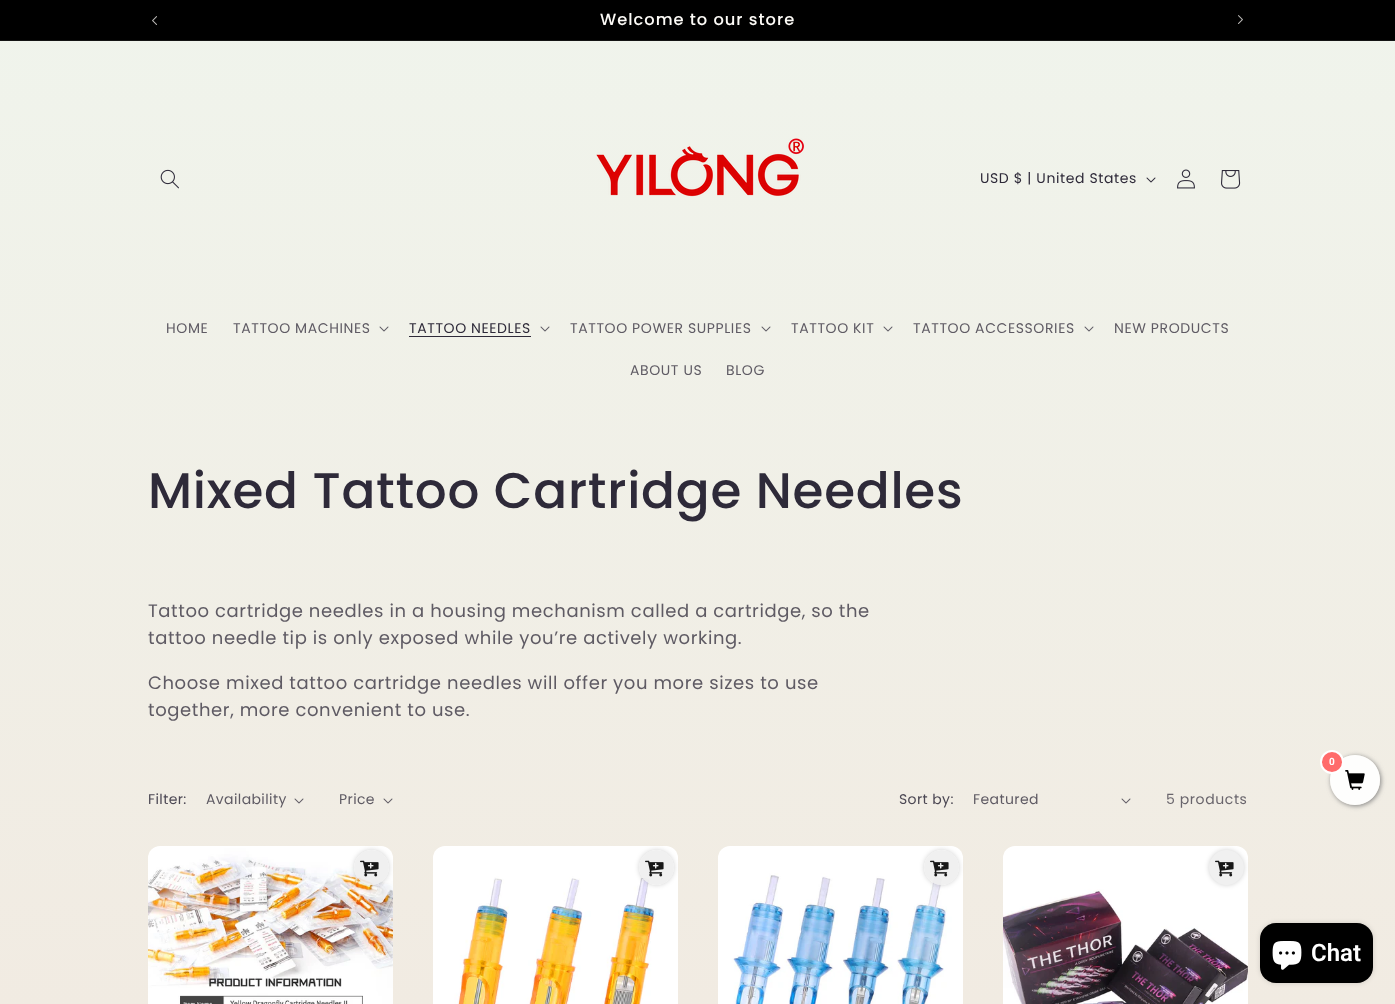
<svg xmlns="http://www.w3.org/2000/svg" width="1395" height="1004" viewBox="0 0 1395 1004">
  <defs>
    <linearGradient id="g1" gradientUnits="userSpaceOnUse" x1="697" y1="0" x2="698" y2="1004"><stop offset="0" stop-color="#f0f4ec"/><stop offset="1" stop-color="#f1ebe2"/></linearGradient>
    <clipPath id="clip1"><path d="M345 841H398V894H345ZM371.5 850C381 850 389 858 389 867.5C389 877 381 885 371.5 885C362 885 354 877 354 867.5C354 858 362 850 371.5 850Z" clip-rule="evenodd"/></clipPath>
    <filter id="blur1" x="-50%" y="-200%" width="200%" height="500%"><feGaussianBlur stdDeviation="2.5"/></filter>
    <clipPath id="clip2"><path d="M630 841H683V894H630ZM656.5 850C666 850 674 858 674 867.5C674 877 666 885 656.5 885C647 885 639 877 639 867.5C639 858 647 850 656.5 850Z" clip-rule="evenodd"/></clipPath>
    <clipPath id="clip3"><path d="M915 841H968V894H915ZM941.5 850C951 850 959 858 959 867.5C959 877 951 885 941.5 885C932 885 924 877 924 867.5C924 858 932 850 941.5 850Z" clip-rule="evenodd"/></clipPath>
    <clipPath id="clip4"><path d="M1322 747H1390V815H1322ZM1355 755C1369 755 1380 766 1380 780C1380 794 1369 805 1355 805C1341 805 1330 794 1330 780C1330 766 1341 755 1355 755Z" clip-rule="evenodd"/></clipPath>
  </defs>
  <rect width="100%" height="100%" fill="#ffffff"/>
  <rect x="0" y="41" width="1395" height="963" fill="url(#g1)"/>
  <rect x="0" y="0" width="1395" height="40" fill="#000000"/>
  <rect x="0" y="40" width="1395" height="1" fill="#141414"/>
  <image x="152" y="16" width="5" height="9" href="img1.png"/>
  <text x="600" y="25" font-family="Poppins" font-size="16.25" font-weight="500" letter-spacing="1" fill="#fdfbf7">Welcome to our store</text>
  <image x="1238" y="15" width="5" height="9" href="img2.png"/>
  <image x="160" y="169" width="19" height="20" href="img3.png"/>
  <image x="596" y="138" width="208" height="59" href="img4.png"/>
  <text x="980" y="183" font-family="Poppins" font-size="14" letter-spacing="0.6" fill="#2e2a39">USD $ | United States</text>
  <image x="1146" y="177" width="10" height="6" href="img5.png"/>
  <image x="1177" y="169" width="18" height="20" href="img6.png"/>
  <image x="1221" y="170" width="20" height="19" href="img7.png"/>
  <text x="166" y="333" font-family="Poppins" font-size="14" letter-spacing="0.6" fill="#5f5b64">HOME</text>
  <text x="233" y="333" font-family="Poppins" font-size="14" letter-spacing="0.6" fill="#5f5b64">TATTOO MACHINES</text>
  <image x="379" y="326" width="10" height="6" href="img8.png"/>
  <text x="409" y="333" font-family="Poppins" font-size="14" letter-spacing="0.6" fill="#2e2a39">TATTOO NEEDLES</text>
  <rect x="409" y="336" width="122" height="1" fill="#2e2a39"/>
  <image x="540" y="326" width="10" height="6" href="img8.png"/>
  <text x="570" y="333" font-family="Poppins" font-size="14" letter-spacing="0.6" fill="#5f5b64">TATTOO POWER SUPPLIES</text>
  <image x="761" y="326" width="10" height="6" href="img8.png"/>
  <text x="791" y="333" font-family="Poppins" font-size="14" letter-spacing="0.6" fill="#5f5b64">TATTOO KIT</text>
  <image x="883" y="326" width="10" height="6" href="img8.png"/>
  <text x="913" y="333" font-family="Poppins" font-size="14" letter-spacing="0.6" fill="#5f5b64">TATTOO ACCESSORIES</text>
  <image x="1084" y="326" width="10" height="6" href="img8.png"/>
  <text x="1114" y="333" font-family="Poppins" font-size="14" letter-spacing="0.6" fill="#5f5b64">NEW PRODUCTS</text>
  <text x="630" y="375" font-family="Poppins" font-size="14" letter-spacing="0.6" fill="#5f5b64">ABOUT US</text>
  <text x="726" y="375" font-family="Poppins" font-size="14" letter-spacing="0.6" fill="#5f5b64">BLOG</text>
  <text x="148" y="508" font-family="Poppins" font-size="50" font-weight="500" letter-spacing="0.75" fill="#2e2a39">Mixed Tattoo Cartridge Needles</text>
  <text x="148" y="617" font-family="Poppins" font-size="18" letter-spacing="0.6" fill="#5f5b64">Tattoo cartridge needles in a housing mechanism called a cartridge, so the</text>
  <text x="148" y="644" font-family="Poppins" font-size="18" letter-spacing="0.6" fill="#5f5b64">tattoo needle tip is only exposed while you’re actively working.</text>
  <text x="148" y="689" font-family="Poppins" font-size="18" letter-spacing="0.6" fill="#5f5b64">Choose mixed tattoo cartridge needles will offer you more sizes to use</text>
  <text x="148" y="716" font-family="Poppins" font-size="18" letter-spacing="0.6" fill="#5f5b64">together, more convenient to use.</text>
  <text x="148" y="804" font-family="Poppins" font-size="14" letter-spacing="0.4" fill="#4b4753">Filter:</text>
  <text x="206" y="804" font-family="Poppins" font-size="14" letter-spacing="0.4" fill="#5f5b64">Availability</text>
  <image x="294" y="798" width="10" height="6" href="img9.png"/>
  <text x="339" y="804" font-family="Poppins" font-size="14" letter-spacing="0.4" fill="#5f5b64">Price</text>
  <image x="383" y="798" width="10" height="6" href="img9.png"/>
  <text x="899" y="804" font-family="Poppins" font-size="14" letter-spacing="0.4" fill="#4b4753">Sort by:</text>
  <text x="973" y="804" font-family="Poppins" font-size="14" letter-spacing="0.4" fill="#5f5b64">Featured</text>
  <image x="1121" y="798" width="10" height="6" href="img9.png"/>
  <text x="1166" y="804" font-family="Poppins" font-size="14" letter-spacing="0.6" fill="#69656c">5 products</text>
  <image x="148" y="846" width="245" height="158" href="img11.png"/>
  <g clip-path="url(#clip1)">
    <rect x="354" y="850" width="35" height="35" rx="17.5" fill="#000000" fill-opacity="0.18" filter="url(#blur1)"/>
  </g>
  <circle cx="371.5" cy="867.5" r="17.5" fill="#eeeeee" fill-opacity="0.9"/>
  <image x="360" y="860" width="19" height="17" href="img10.png"/>
  <image x="433" y="846" width="245" height="158" href="img13.png"/>
  <g clip-path="url(#clip2)">
    <rect x="639" y="850" width="35" height="35" rx="17.5" fill="#000000" fill-opacity="0.18" filter="url(#blur1)"/>
  </g>
  <circle cx="656.5" cy="867.5" r="17.5" fill="#eeeeee" fill-opacity="0.9"/>
  <image x="645" y="860" width="19" height="17" href="img12.png"/>
  <image x="718" y="846" width="245" height="158" href="img14.png"/>
  <g clip-path="url(#clip3)">
    <rect x="924" y="850" width="35" height="35" rx="17.5" fill="#000000" fill-opacity="0.18" filter="url(#blur1)"/>
  </g>
  <circle cx="941.5" cy="867.5" r="17.5" fill="#eeeeee" fill-opacity="0.9"/>
  <image x="930" y="860" width="19" height="17" href="img12.png"/>
  <image x="1003" y="846" width="245" height="158" href="img16.png"/>
  <rect x="1209" y="850" width="35" height="35" rx="17.5" fill="#000000" fill-opacity="0.18" filter="url(#blur1)"/>
  <circle cx="1226.5" cy="867.5" r="17.5" fill="#f0f0f0"/>
  <image x="1215" y="860" width="19" height="17" href="img15.png"/>
  <g clip-path="url(#clip4)">
    <rect x="1331" y="756" width="50" height="50" rx="25" fill="#808080" filter="url(#blur1)"/>
  </g>
  <circle cx="1355" cy="780" r="25" fill="#ffffff" fill-opacity="0.9"/>
  <circle cx="1332" cy="762" r="11" fill="#ff6b6b" stroke="#ffffff" stroke-width="2"/>
  <text x="1329" y="765" font-family="Roboto" font-size="10" font-weight="bold" letter-spacing="0.6" fill="#ffffff">0</text>
  <image x="1345" y="770" width="20" height="20" href="img17.png"/>
  <rect x="1260" y="923" width="113" height="60" rx="16" fill="#000000" fill-opacity="0.15" filter="url(#blur1)"/>
  <rect x="1260" y="923" width="113" height="60" rx="16" fill="#000000"/>
  <image x="1272" y="941" width="30" height="29" href="img18.png"/>
  <text x="1311" y="961" font-family="Roboto" font-size="24" font-weight="600" fill="#ffffff">Chat</text>
</svg>
